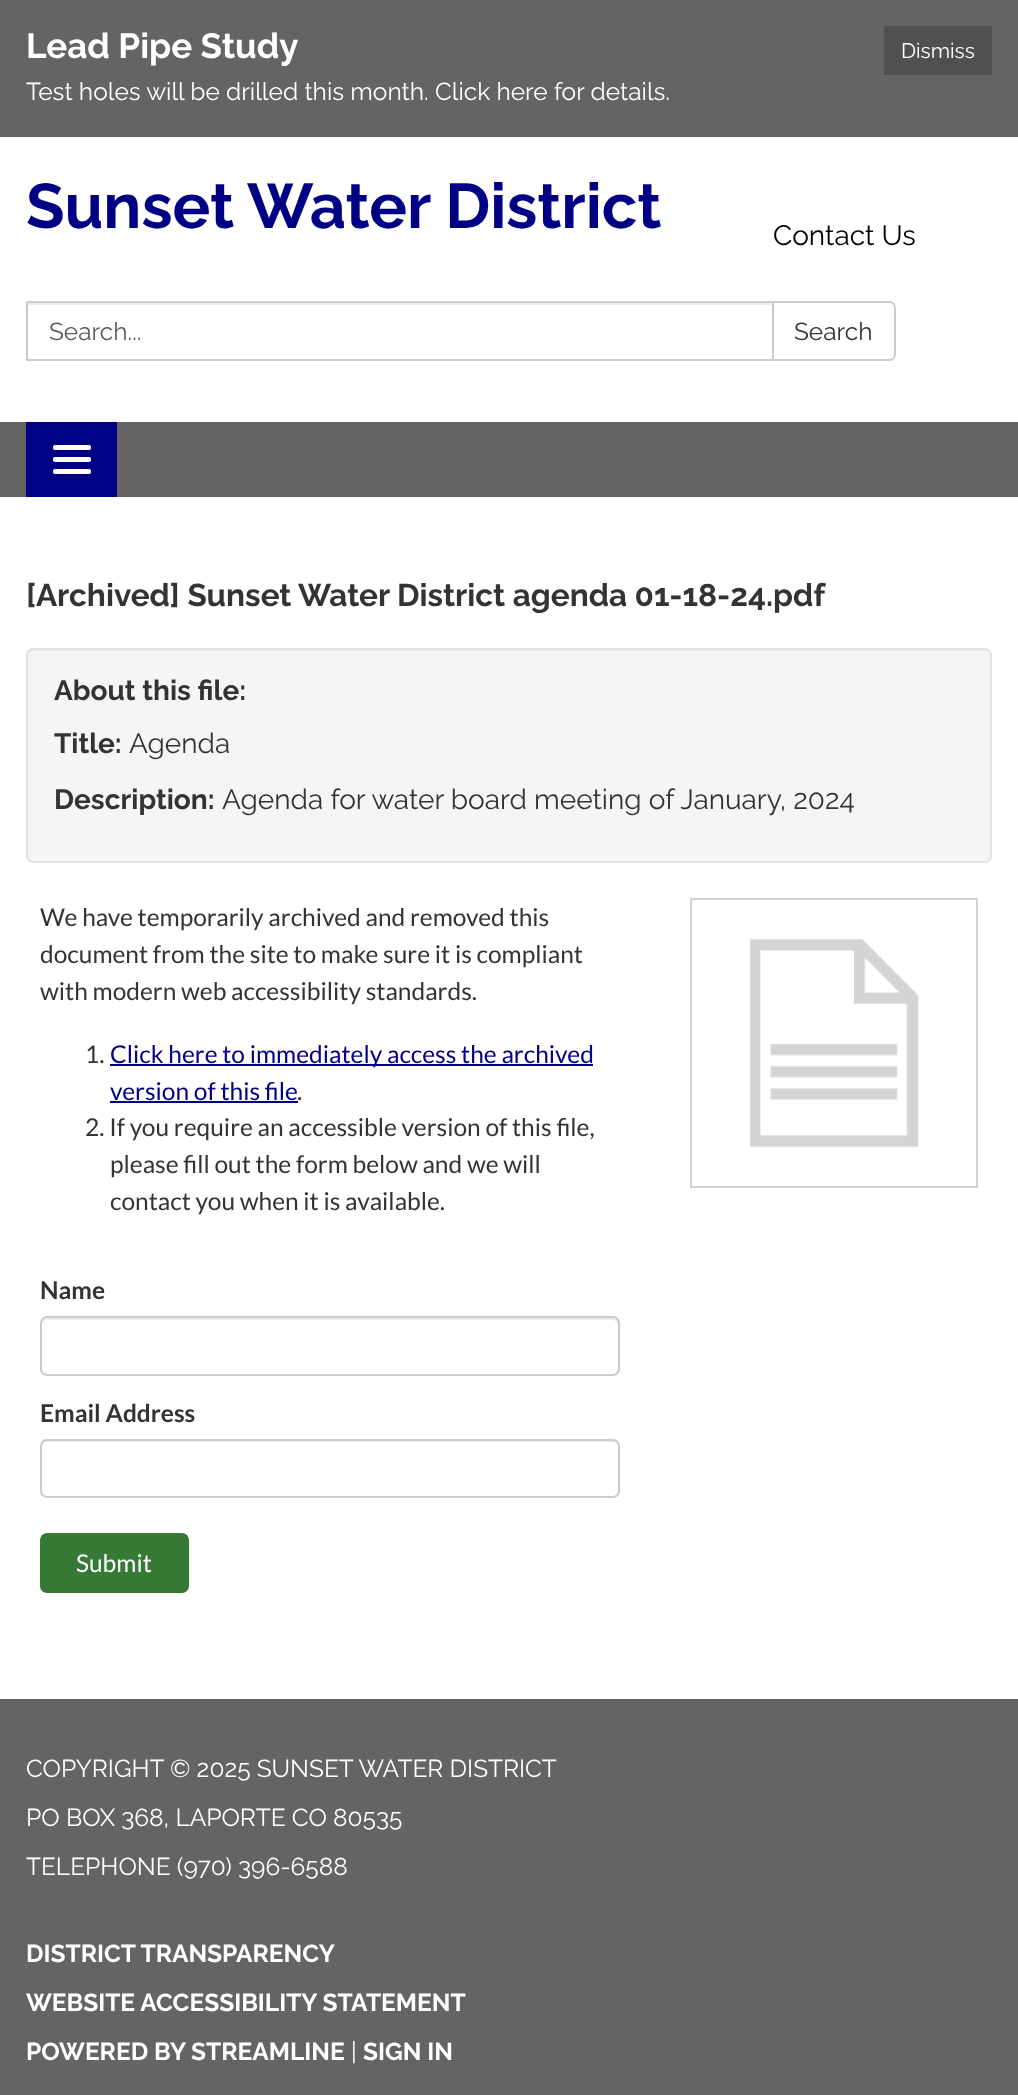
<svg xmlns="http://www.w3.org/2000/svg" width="1018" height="2095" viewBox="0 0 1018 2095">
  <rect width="100%" height="100%" fill="#646464"/>
  <text x="26" y="58" font-family="Raleway" font-size="35" font-weight="bold" fill="#ffffff">Lead Pipe Study</text>
  <rect x="884" y="26" width="108" height="49" fill="#505050"/>
  <text x="901" y="58" font-family="Raleway" font-size="21" fill="#ffffff">Dismiss</text>
  <text x="26" y="100" font-family="Raleway" font-size="24.5" fill="#ffffff">Test holes will be drilled this month. Click here for details.</text>
  <rect x="0" y="137" width="1018" height="285" fill="#ffffff"/>
  <text x="26" y="228" font-family="Raleway" font-size="63" font-weight="bold" fill="#000085">Sunset Water District</text>
  <text x="773" y="245" font-family="Raleway" font-size="28" fill="#000000">Contact Us</text>
  <rect x="28" y="303" width="744" height="2" fill="#ececec"/>
  <rect x="27" y="302" width="746" height="58" fill="none" stroke="#cccccc" stroke-width="2"/>
  <text x="49" y="340" font-family="Raleway" font-size="24.5" fill="#5b5b5b">Search...</text>
  <path d="M773 302H889C892.5 302 895 304.5 895 308V354C895 357.5 892.5 360 889 360H773Z" fill="#ffffff" stroke="#cccccc" stroke-width="2"/>
  <text x="794" y="340" font-family="Raleway" font-size="24.5" fill="#333333">Search</text>
  <rect x="26" y="422" width="91" height="75" fill="#000085"/>
  <rect x="53" y="445" width="38" height="5" rx="2" fill="#ffffff"/>
  <rect x="53" y="457" width="38" height="5" rx="2" fill="#ffffff"/>
  <rect x="53" y="469" width="38" height="5" rx="2" fill="#ffffff"/>
  <rect x="0" y="497" width="1018" height="1202" fill="#ffffff"/>
  <text x="26" y="606" font-family="Raleway" font-size="31.5" font-weight="bold" fill="#333333">[Archived] Sunset Water District agenda 01-18-24.pdf</text>
  <rect x="26" y="648" width="966" height="215" rx="7" fill="#f5f5f5"/>
  <path d="M33 651H985C988 651 990 653 990 656V859C991 858 991 857 991 856V654C991 651 989 649 986 649H33C30 649 28 651 28 654V656C28 653 30 651 33 651Z" fill="#e9e9e9"/>
  <rect x="27" y="649" width="964" height="213" rx="6" fill="none" stroke="#e3e3e3" stroke-width="2"/>
  <text x="54" y="700" font-family="Raleway" font-size="28" font-weight="bold" fill="#333333">About this file:</text>
  <text x="54" y="753" font-family="Raleway" font-size="28" font-weight="bold" fill="#333333">Title:</text>
  <text x="129" y="753" font-family="Raleway" font-size="28" fill="#333333">Agenda</text>
  <text x="54" y="809" font-family="Raleway" font-size="28" font-weight="bold" fill="#333333">Description:</text>
  <text x="222" y="809" font-family="Raleway" font-size="28" fill="#333333">Agenda for water board meeting of January, 2024</text>
  <text x="40" y="926" font-family="Lato" font-size="24.5" fill="#333333">We have temporarily archived and removed this</text>
  <text x="40" y="963" font-family="Lato" font-size="24.5" fill="#333333">document from the site to make sure it is compliant</text>
  <text x="40" y="1000" font-family="Lato" font-size="24.5" fill="#333333">with modern web accessibility standards.</text>
  <text x="85" y="1063" font-family="Lato" font-size="24.5" fill="#333333">1.</text>
  <rect x="110" y="1064" width="483" height="2" fill="#000085"/>
  <text x="110" y="1063" font-family="Lato" font-size="24.5" fill="#000085">Click here to immediately access the archived</text>
  <text x="110" y="1100" font-family="Lato" font-size="24.5" fill="#000085">version of this file</text>
  <rect x="110" y="1101" width="188" height="2" fill="#000085"/>
  <text x="297" y="1100" font-family="Lato" font-size="24.5" fill="#333333">.</text>
  <text x="85" y="1136" font-family="Lato" font-size="24.5" fill="#333333">2. If you require an accessible version of this file,</text>
  <text x="110" y="1173" font-family="Lato" font-size="24.5" fill="#333333">please fill out the form below and we will</text>
  <text x="110" y="1210" font-family="Lato" font-size="24.5" fill="#333333">contact you when it is available.</text>
  <text x="40" y="1299" font-family="Lato" font-size="24.5" font-weight="bold" fill="#333333">Name</text>
  <path d="M47 1320H612C615 1320 618 1322 618 1325V1323C618 1320 616 1318 613 1318H47C44 1318 42 1320 42 1323V1325C42 1322 44 1320 47 1320Z" fill="#ececec"/>
  <rect x="41" y="1317" width="578" height="58" rx="6" fill="none" stroke="#cccccc" stroke-width="2"/>
  <text x="40" y="1422" font-family="Lato" font-size="24.5" font-weight="bold" fill="#333333">Email Address</text>
  <path d="M47 1442H612C615 1442 618 1444 618 1447V1445C618 1442 616 1440 613 1440H47C44 1440 42 1442 42 1445V1447C42 1444 44 1442 47 1442Z" fill="#ececec"/>
  <rect x="41" y="1440" width="578" height="57" rx="6" fill="none" stroke="#cccccc" stroke-width="2"/>
  <rect x="41" y="1534" width="147" height="58" rx="6" fill="#357935" stroke="#357935" stroke-width="2"/>
  <text x="76" y="1572" font-family="Lato" font-size="24.5" fill="#ffffff">Submit</text>
  <rect x="691" y="899" width="286" height="288" fill="none" stroke="#d0d2d4" stroke-width="2"/>
  <image x="749" y="938" width="170" height="210" href="img1.png"/>
  <text x="26" y="1777" font-family="Raleway" font-size="24.5" fill="#ffffff">COPYRIGHT © 2025 SUNSET WATER DISTRICT</text>
  <text x="26" y="1826" font-family="Raleway" font-size="24.5" fill="#ffffff">PO BOX 368, LAPORTE CO 80535</text>
  <text x="26" y="1875" font-family="Raleway" font-size="24.5" fill="#ffffff">TELEPHONE (970) 396-6588</text>
  <text x="26" y="1962" font-family="Raleway" font-size="24.5" font-weight="bold" fill="#ffffff">DISTRICT TRANSPARENCY</text>
  <text x="26" y="2011" font-family="Raleway" font-size="24.5" font-weight="bold" fill="#ffffff">WEBSITE ACCESSIBILITY STATEMENT</text>
  <text x="26" y="2060" font-family="Raleway" font-size="24.5" font-weight="bold" fill="#ffffff">POWERED BY STREAMLINE</text>
  <text x="351" y="2060" font-family="Raleway" font-size="24.5" fill="#ffffff">|</text>
  <text x="363" y="2060" font-family="Raleway" font-size="24.5" font-weight="bold" fill="#ffffff">SIGN IN</text>
</svg>
